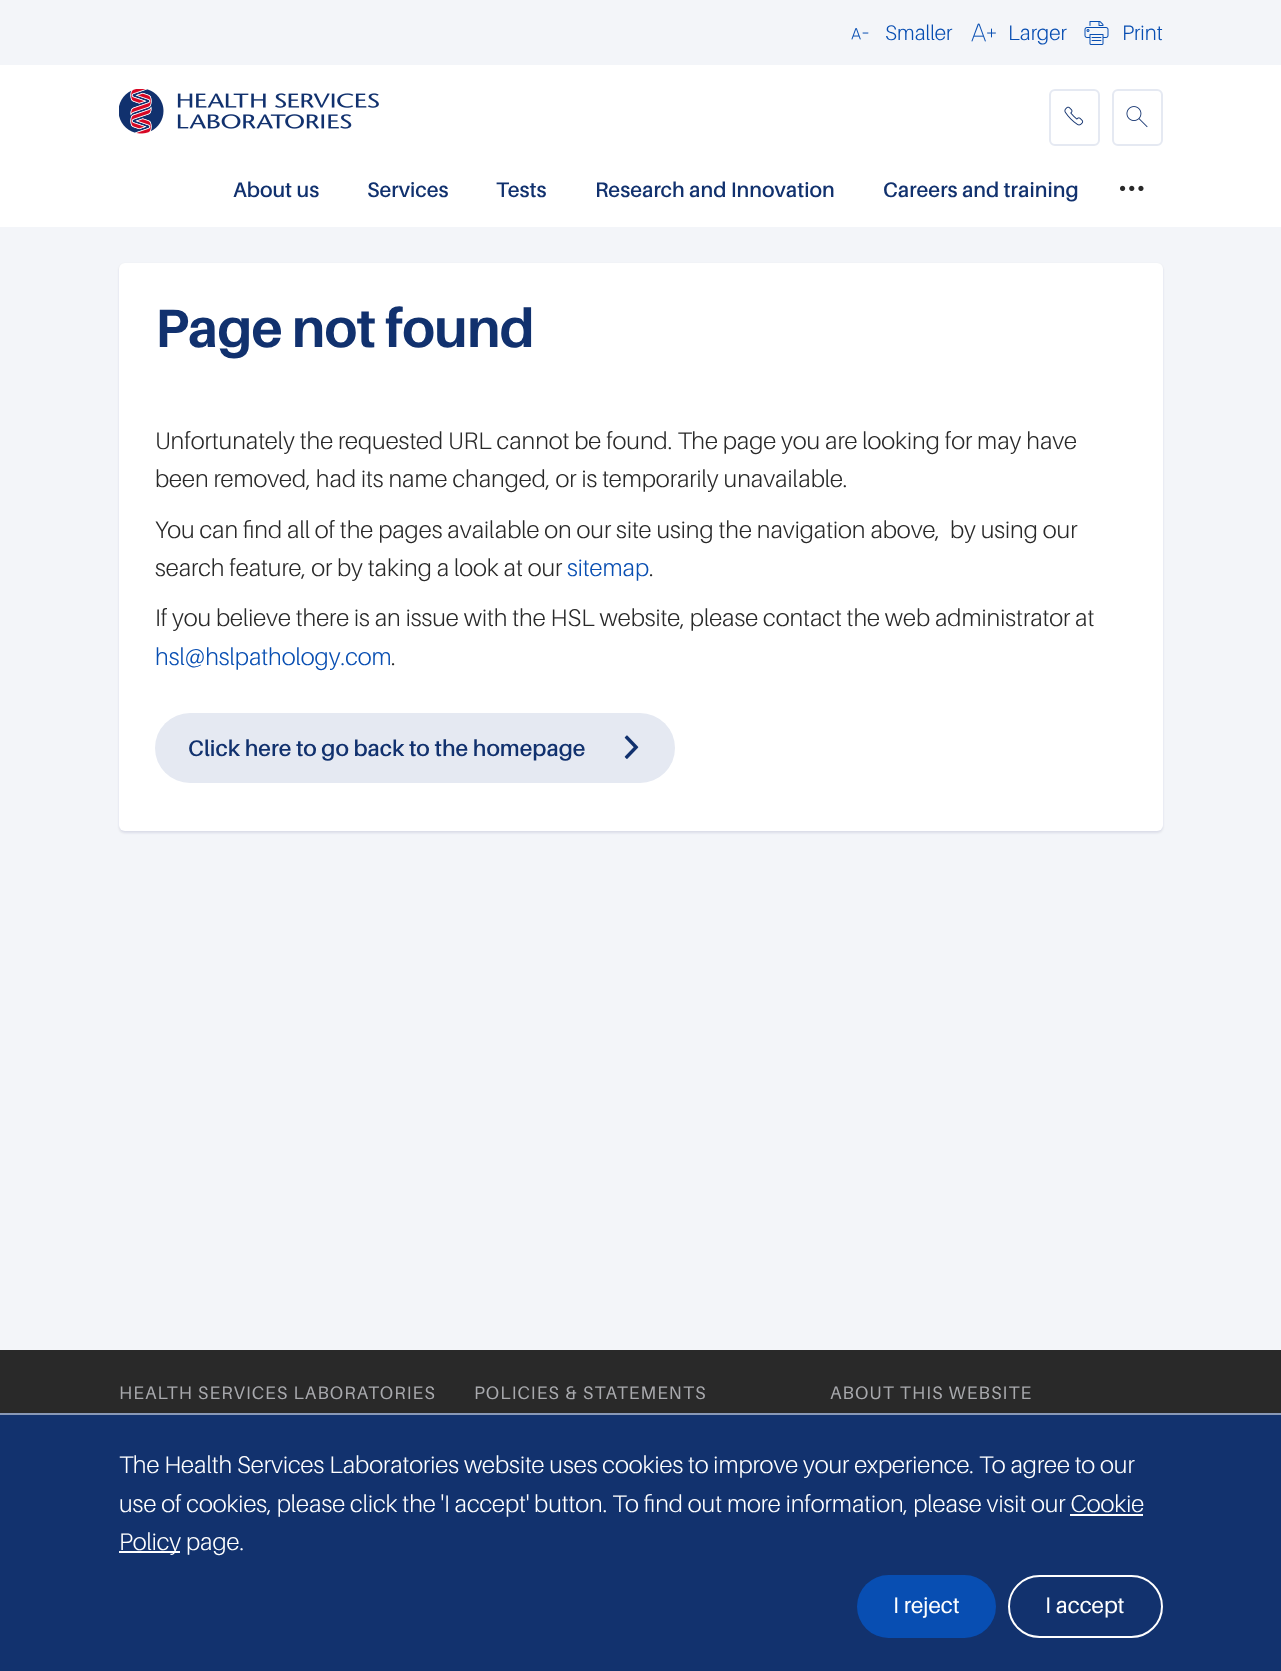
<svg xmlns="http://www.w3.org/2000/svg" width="1281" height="1671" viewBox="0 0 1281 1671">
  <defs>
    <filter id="blur1" x="-50%" y="-200%" width="200%" height="500%"><feGaussianBlur stdDeviation="1"/></filter>
  </defs>
  <rect width="100%" height="100%" fill="#f3f5f9"/>
  <rect x="0" y="65" width="1281" height="162" fill="#ffffff"/>
  <image x="851" y="28" width="18" height="12" href="img1.png"/>
  <text x="885" y="40" font-family="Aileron" font-size="21" font-weight="300" fill="#084eb2">Smaller</text>
  <image x="971" y="23" width="25" height="19" href="img2.png"/>
  <text x="1008" y="40" font-family="Aileron" font-size="21" font-weight="300" fill="#084eb2">Larger</text>
  <image x="1084" y="21" width="25" height="24" href="img3.png"/>
  <text x="1122" y="40" font-family="Aileron" font-size="21" font-weight="300" fill="#084eb2">Print</text>
  <image x="119" y="89" width="260" height="45" href="img4.png"/>
  <rect x="1050" y="90" width="49" height="55" rx="5" fill="none" stroke="#e5e9f2" stroke-width="2"/>
  <image x="1064" y="106" width="20" height="20" href="img5.png"/>
  <rect x="1113" y="90" width="49" height="55" rx="5" fill="none" stroke="#e5e9f2" stroke-width="2"/>
  <image x="1126" y="106" width="22" height="22" href="img6.png"/>
  <text x="233" y="197" font-family="Aileron" font-size="21" font-weight="600" fill="#11316e">About us</text>
  <text x="367" y="197" font-family="Aileron" font-size="21" font-weight="600" fill="#11316e">Services</text>
  <text x="496" y="197" font-family="Aileron" font-size="21" font-weight="600" fill="#11316e">Tests</text>
  <text x="595" y="197" font-family="Aileron" font-size="21" font-weight="600" fill="#11316e">Research and Innovation</text>
  <text x="883" y="197" font-family="Aileron" font-size="21" font-weight="600" fill="#11316e">Careers and training</text>
  <image x="1120" y="185" width="24" height="6" href="img7.png"/>
  <rect x="119" y="264" width="1044" height="569" rx="6" fill="#001f41" fill-opacity="0.1" filter="url(#blur1)"/>
  <rect x="119" y="263" width="1044" height="568" rx="6" fill="#ffffff"/>
  <text x="155" y="347" font-family="Aileron" font-size="54" font-weight="bold" letter-spacing="-0.75" fill="#11316e">Page not found</text>
  <text x="155" y="449" font-family="Aileron" font-size="24" font-weight="300" fill="#292929">Unfortunately the requested URL cannot be found. The page you are looking for may have</text>
  <text x="155" y="487" font-family="Aileron" font-size="24" font-weight="300" fill="#292929">been removed, had its name changed, or is temporarily unavailable.</text>
  <text x="155" y="538" font-family="Aileron" font-size="24" font-weight="300" fill="#292929" xml:space="preserve">You can find all of the pages available on our site using the navigation above,  by using our</text>
  <text x="155" y="576" font-family="Aileron" font-size="24" font-weight="300" fill="#292929">search feature, or by taking a look at our</text>
  <text x="567" y="576" font-family="Aileron" font-size="24" font-weight="300" fill="#084eb2">sitemap</text>
  <text x="649" y="576" font-family="Aileron" font-size="24" font-weight="300" fill="#292929">.</text>
  <text x="155" y="626" font-family="Aileron" font-size="24" font-weight="300" fill="#292929">If you believe there is an issue with the HSL website, please contact the web administrator at</text>
  <text x="155" y="665" font-family="Aileron" font-size="24" font-weight="300" fill="#084eb2">hsl@hslpathology.com</text>
  <text x="391" y="665" font-family="Aileron" font-size="24" font-weight="300" fill="#292929">.</text>
  <rect x="155" y="713" width="520" height="70" rx="35" fill="#e5e9f2"/>
  <text x="188" y="756" font-family="Aileron" font-size="22.5" font-weight="600" fill="#11316e">Click here to go back to the homepage</text>
  <image x="624" y="735" width="15" height="24" href="img8.png"/>
  <rect x="0" y="1350" width="1281" height="63" fill="#292929"/>
  <text x="119" y="1399" font-family="Aileron" font-size="18" letter-spacing="1.1" fill="#a8a9ad">HEALTH SERVICES LABORATORIES</text>
  <text x="474" y="1399" font-family="Aileron" font-size="18" letter-spacing="1.1" fill="#a8a9ad">POLICIES &amp; STATEMENTS</text>
  <text x="830" y="1399" font-family="Aileron" font-size="18" letter-spacing="1.1" fill="#a8a9ad">ABOUT THIS WEBSITE</text>
  <rect x="0" y="1415" width="1281" height="256" fill="#12326e"/>
  <rect x="0" y="1413" width="1281" height="2" fill="#8999b7"/>
  <text x="119" y="1473" font-family="Aileron" font-size="24" font-weight="300" fill="#ffffff">The Health Services Laboratories website uses cookies to improve your experience. To agree to our</text>
  <text x="119" y="1512" font-family="Aileron" font-size="24" font-weight="300" fill="#ffffff">use of cookies, please click the 'I accept' button. To find out more information, please visit our Cookie</text>
  <rect x="119" y="1551" width="61" height="2" fill="#ffffff"/>
  <text x="119" y="1550" font-family="Aileron" font-size="24" font-weight="300" fill="#ffffff">Policy page.</text>
  <rect x="1070" y="1514" width="73" height="2" fill="#ffffff"/>
  <rect x="857" y="1575" width="139" height="63" rx="31.5" fill="#084eb2"/>
  <text x="893" y="1613" font-family="Aileron" font-size="22.5" fill="#ffffff">I reject</text>
  <rect x="1009" y="1576" width="153" height="61" rx="30.5" fill="none" stroke="#ffffff" stroke-width="2"/>
  <text x="1045" y="1613" font-family="Aileron" font-size="22.5" fill="#ffffff">I accept</text>
</svg>
